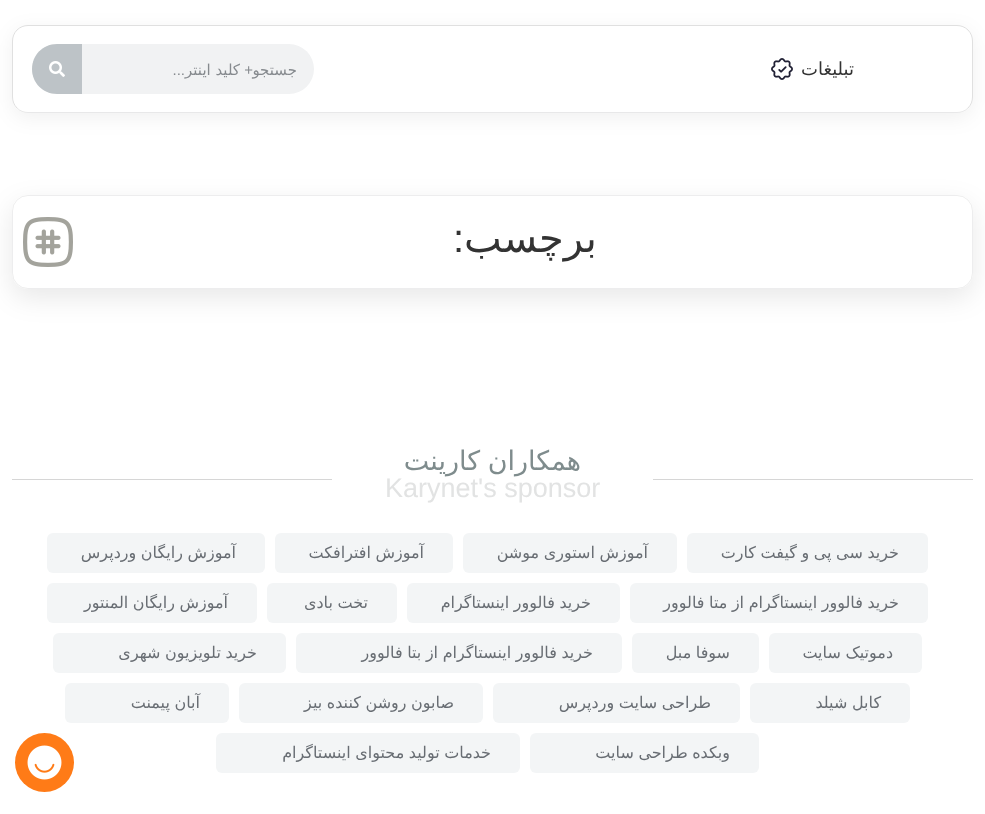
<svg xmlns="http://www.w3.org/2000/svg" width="985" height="814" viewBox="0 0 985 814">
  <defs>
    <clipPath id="clip1"><path d="M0 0H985V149H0ZM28 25H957C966 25 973 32 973 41V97C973 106 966 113 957 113H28C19 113 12 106 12 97V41C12 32 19 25 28 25Z" clip-rule="evenodd"/></clipPath>
    <filter id="blur1" x="-50%" y="-200%" width="200%" height="500%"><feGaussianBlur stdDeviation="10"/></filter>
    <clipPath id="clip2"><path d="M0 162H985V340H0ZM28 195H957C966 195 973 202 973 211V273C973 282 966 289 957 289H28C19 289 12 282 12 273V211C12 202 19 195 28 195Z" clip-rule="evenodd"/></clipPath>
    <filter id="blur2" x="-50%" y="-200%" width="200%" height="500%"><feGaussianBlur stdDeviation="13.5"/></filter>
  </defs>
  <rect width="100%" height="100%" fill="#ffffff"/>
  <g clip-path="url(#clip1)">
    <rect x="12" y="30" width="961" height="88" rx="16" fill="#05010d" fill-opacity="0.06" filter="url(#blur1)"/>
  </g>
  <path d="M968 108C965 111 961 112.5 957 112.5H28C24 112.5 20 111 17 108" fill="none" stroke="#05010d" stroke-opacity="0.09"/>
  <path d="M17 108C14 105 12.5 101 12.5 97V41C12.5 37 14 33 17 30C20 27 24 25.5 28 25.5H957C961 25.5 965 27 968 30C971 33 972.5 37 972.5 41V97C972.5 101 971 105 968 108" fill="none" stroke="#e0e0e0"/>
  <text x="854" y="75" font-family="DejaVu Sans" font-size="18" direction="rtl" fill="#333333">تبلیغات</text>
  <image x="771" y="58" width="22" height="22" href="img1.png"/>
  <rect x="32" y="44" width="282" height="50" rx="25" fill="#f1f2f3"/>
  <text x="253" y="75" font-family="Liberation Sans" font-size="15" direction="rtl" fill="#868a8e">+</text>
  <text x="297" y="75" font-family="DejaVu Sans" font-size="15" direction="rtl" fill="#868a8e">جستجو</text>
  <text x="185" y="75" font-family="Liberation Sans" font-size="15" direction="rtl" fill="#868a8e">...</text>
  <text x="240" y="75" font-family="DejaVu Sans" font-size="15" direction="rtl" fill="#868a8e">کلید اینتر</text>
  <path d="M57 44H82V94H57C43 94 32 83 32 69C32 55 43 44 57 44Z" fill="#bdc3c7"/>
  <image x="49" y="61" width="16" height="16" href="img2.png"/>
  <g clip-path="url(#clip2)">
    <rect x="12" y="204" width="961" height="94" rx="16" fill="#05010d" fill-opacity="0.09" filter="url(#blur2)"/>
  </g>
  <rect x="12.5" y="195.5" width="960" height="93" rx="15.5" fill="none" stroke="#05010d" stroke-opacity="0.07"/>
  <text x="597" y="252" font-family="DejaVu Sans" font-size="40" direction="rtl" fill="#333333">برچسب</text>
  <text x="464" y="252" font-family="Liberation Sans" font-size="40" direction="rtl" fill="#333333">:</text>
  <image x="23" y="217" width="50" height="50" href="img3.png"/>
  <rect x="653" y="479" width="320" height="1" fill="#d6d6d6"/>
  <text x="581" y="470" word-spacing="-1" font-family="DejaVu Sans" font-size="27" direction="rtl" fill="#7f8c8d">همکاران کارینت</text>
  <text x="385" y="497" font-family="Liberation Sans" font-size="27" fill="#e2e3e3">Karynet's sponsor</text>
  <rect x="12" y="479" width="320" height="1" fill="#d6d6d6"/>
  <rect x="687" y="533" width="241" height="40" rx="6" fill="#f3f5f6"/>
  <text x="899" y="558" word-spacing="-0.5" font-family="DejaVu Sans" font-size="16" direction="rtl" fill="#686d73">خرید سی پی و گیفت کارت</text>
  <rect x="463" y="533" width="214" height="40" rx="6" fill="#f3f5f6"/>
  <text x="648" y="558" word-spacing="-0.5" font-family="DejaVu Sans" font-size="16" direction="rtl" fill="#686d73">آموزش استوری موشن</text>
  <rect x="275" y="533" width="178" height="40" rx="6" fill="#f3f5f6"/>
  <text x="424" y="558" word-spacing="-0.5" font-family="DejaVu Sans" font-size="16" direction="rtl" fill="#686d73">آموزش افترافکت</text>
  <rect x="47" y="533" width="218" height="40" rx="6" fill="#f3f5f6"/>
  <text x="236" y="558" word-spacing="-0.5" font-family="DejaVu Sans" font-size="16" direction="rtl" fill="#686d73">آموزش رایگان وردپرس</text>
  <rect x="630" y="583" width="298" height="40" rx="6" fill="#f3f5f6"/>
  <text x="899" y="608" word-spacing="-0.5" font-family="DejaVu Sans" font-size="16" direction="rtl" fill="#686d73">خرید فالوور اینستاگرام از متا فالوور</text>
  <rect x="407" y="583" width="213" height="40" rx="6" fill="#f3f5f6"/>
  <text x="591" y="608" word-spacing="-0.5" font-family="DejaVu Sans" font-size="16" direction="rtl" fill="#686d73">خرید فالوور اینستاگرام</text>
  <rect x="267" y="583" width="130" height="40" rx="6" fill="#f3f5f6"/>
  <text x="368" y="608" word-spacing="-0.5" font-family="DejaVu Sans" font-size="16" direction="rtl" fill="#686d73">تخت بادی</text>
  <rect x="47" y="583" width="210" height="40" rx="6" fill="#f3f5f6"/>
  <text x="228" y="608" word-spacing="-0.5" font-family="DejaVu Sans" font-size="16" direction="rtl" fill="#686d73">آموزش رایگان المنتور</text>
  <rect x="769" y="633" width="153" height="40" rx="6" fill="#f3f5f6"/>
  <text x="893" y="658" word-spacing="-0.5" font-family="DejaVu Sans" font-size="16" direction="rtl" fill="#686d73">دموتیک سایت</text>
  <rect x="632" y="633" width="127" height="40" rx="6" fill="#f3f5f6"/>
  <text x="730" y="658" word-spacing="-0.5" font-family="DejaVu Sans" font-size="16" direction="rtl" fill="#686d73">سوفا مبل</text>
  <rect x="296" y="633" width="326" height="40" rx="6" fill="#f3f5f6"/>
  <text x="593" y="658" word-spacing="-0.5" font-family="DejaVu Sans" font-size="16" direction="rtl" fill="#686d73">خرید فالوور اینستاگرام از بتا فالوور</text>
  <rect x="53" y="633" width="233" height="40" rx="6" fill="#f3f5f6"/>
  <text x="257" y="658" word-spacing="-0.5" font-family="DejaVu Sans" font-size="16" direction="rtl" fill="#686d73">خرید تلویزیون شهری</text>
  <rect x="750" y="683" width="160" height="40" rx="6" fill="#f3f5f6"/>
  <text x="881" y="708" word-spacing="-0.5" font-family="DejaVu Sans" font-size="16" direction="rtl" fill="#686d73">کابل شیلد</text>
  <rect x="493" y="683" width="247" height="40" rx="6" fill="#f3f5f6"/>
  <text x="711" y="708" word-spacing="-0.5" font-family="DejaVu Sans" font-size="16" direction="rtl" fill="#686d73">طراحی سایت وردپرس</text>
  <rect x="239" y="683" width="244" height="40" rx="6" fill="#f3f5f6"/>
  <text x="454" y="708" word-spacing="-0.5" font-family="DejaVu Sans" font-size="16" direction="rtl" fill="#686d73">صابون روشن کننده بیز</text>
  <rect x="65" y="683" width="164" height="40" rx="6" fill="#f3f5f6"/>
  <text x="200" y="708" word-spacing="-0.5" font-family="DejaVu Sans" font-size="16" direction="rtl" fill="#686d73">آبان پیمنت</text>
  <rect x="530" y="733" width="229" height="40" rx="6" fill="#f3f5f6"/>
  <text x="730" y="758" word-spacing="-0.5" font-family="DejaVu Sans" font-size="16" direction="rtl" fill="#686d73">وبکده طراحی سایت</text>
  <rect x="216" y="733" width="304" height="40" rx="6" fill="#f3f5f6"/>
  <text x="491" y="758" word-spacing="-0.5" font-family="DejaVu Sans" font-size="16" direction="rtl" fill="#686d73">خدمات تولید محتوای اینستاگرام</text>
  <circle cx="44.5" cy="762.5" r="29.5" fill="#ff7b17"/>
  <image x="27" y="745" width="35" height="35" href="img4.png"/>
</svg>
